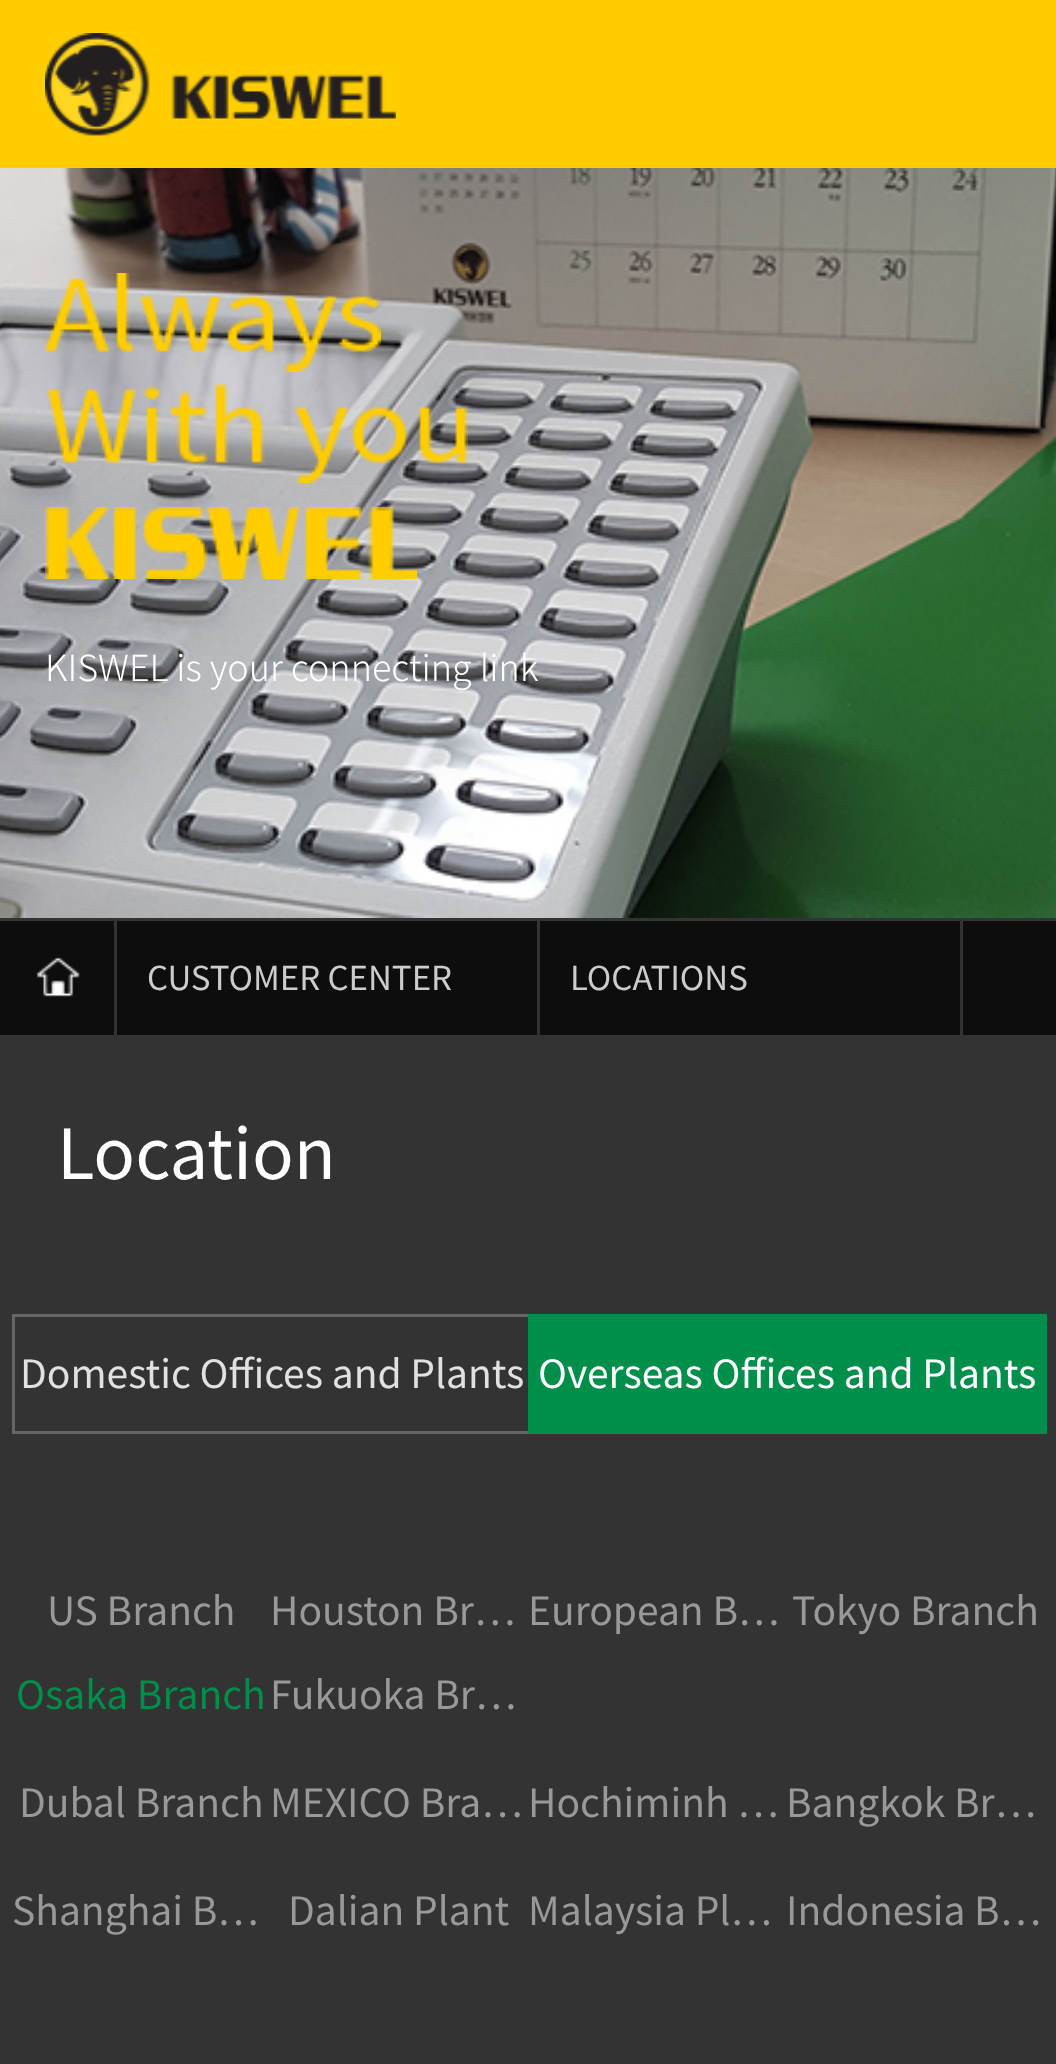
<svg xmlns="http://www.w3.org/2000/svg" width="1056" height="2064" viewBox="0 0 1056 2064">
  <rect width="100%" height="100%" fill="#333333"/>
  <rect x="0" y="0" width="1056" height="168" fill="#ffcd00"/>
  <image x="45" y="33" width="351" height="103" href="img1.png"/>
  <image x="0" y="168" width="1056" height="750" href="img2.png"/>
  <image x="45" y="273" width="336" height="99" href="img3.png"/>
  <image x="47" y="384" width="421" height="99" href="img4.png"/>
  <image x="45" y="507" width="372" height="72" href="img5.png"/>
  <text x="45" y="681" font-family="Noto Sans KR" font-size="36" font-weight="300" fill="#ffffff">KISWEL is your connecting link</text>
  <rect x="0" y="921" width="1056" height="114" fill="#0d0d0d"/>
  <rect x="114" y="921" width="3" height="114" fill="#333333"/>
  <image x="36" y="957" width="44" height="40" href="img6.png"/>
  <rect x="537" y="921" width="3" height="114" fill="#333333"/>
  <text x="147" y="990" font-family="Noto Sans KR" font-size="33" fill="#cccccc">CUSTOMER CENTER</text>
  <rect x="960" y="921" width="3" height="114" fill="#333333"/>
  <text x="570" y="990" font-family="Noto Sans KR" font-size="33" fill="#cccccc">LOCATIONS</text>
  <text x="57" y="1179" font-family="Noto Sans KR" font-size="69" fill="#ffffff">Location</text>
  <rect x="12" y="1314" width="516" height="3" fill="#666666"/>
  <rect x="12" y="1314" width="3" height="120" fill="#666666"/>
  <rect x="15" y="1431" width="519" height="3" fill="#666666"/>
  <text x="20" y="1388" font-family="Noto Sans KR" font-size="39" fill="#e1e1e1">Domestic Offices and Plants</text>
  <rect x="528" y="1314" width="519" height="120" fill="#008f4b"/>
  <text x="538" y="1388" font-family="Noto Sans KR" font-size="39" fill="#ffffff">Overseas Offices and Plants</text>
  <text x="47" y="1625" font-family="Noto Sans KR" font-size="39" fill="#999999">US Branch</text>
  <text x="270" y="1625" font-family="Noto Sans KR" font-size="39" fill="#999999">Houston Br…</text>
  <text x="528" y="1625" font-family="Noto Sans KR" font-size="39" fill="#999999">European B…</text>
  <text x="792" y="1625" font-family="Noto Sans KR" font-size="39" fill="#999999">Tokyo Branch</text>
  <text x="16" y="1709" font-family="Noto Sans KR" font-size="39" fill="#008f4b">Osaka Branch</text>
  <text x="270" y="1709" font-family="Noto Sans KR" font-size="39" fill="#999999">Fukuoka Br…</text>
  <text x="19" y="1817" font-family="Noto Sans KR" font-size="39" fill="#999999">Dubal Branch</text>
  <text x="270" y="1817" font-family="Noto Sans KR" font-size="39" fill="#999999">MEXICO Bra…</text>
  <text x="528" y="1817" font-family="Noto Sans KR" font-size="39" fill="#999999">Hochiminh …</text>
  <text x="786" y="1817" font-family="Noto Sans KR" font-size="39" fill="#999999">Bangkok Br…</text>
  <text x="12" y="1925" font-family="Noto Sans KR" font-size="39" fill="#999999">Shanghai B…</text>
  <text x="288" y="1925" font-family="Noto Sans KR" font-size="39" fill="#999999">Dalian Plant</text>
  <text x="528" y="1925" font-family="Noto Sans KR" font-size="39" fill="#999999">Malaysia Pl…</text>
  <text x="786" y="1925" font-family="Noto Sans KR" font-size="39" fill="#999999">Indonesia B…</text>
</svg>
